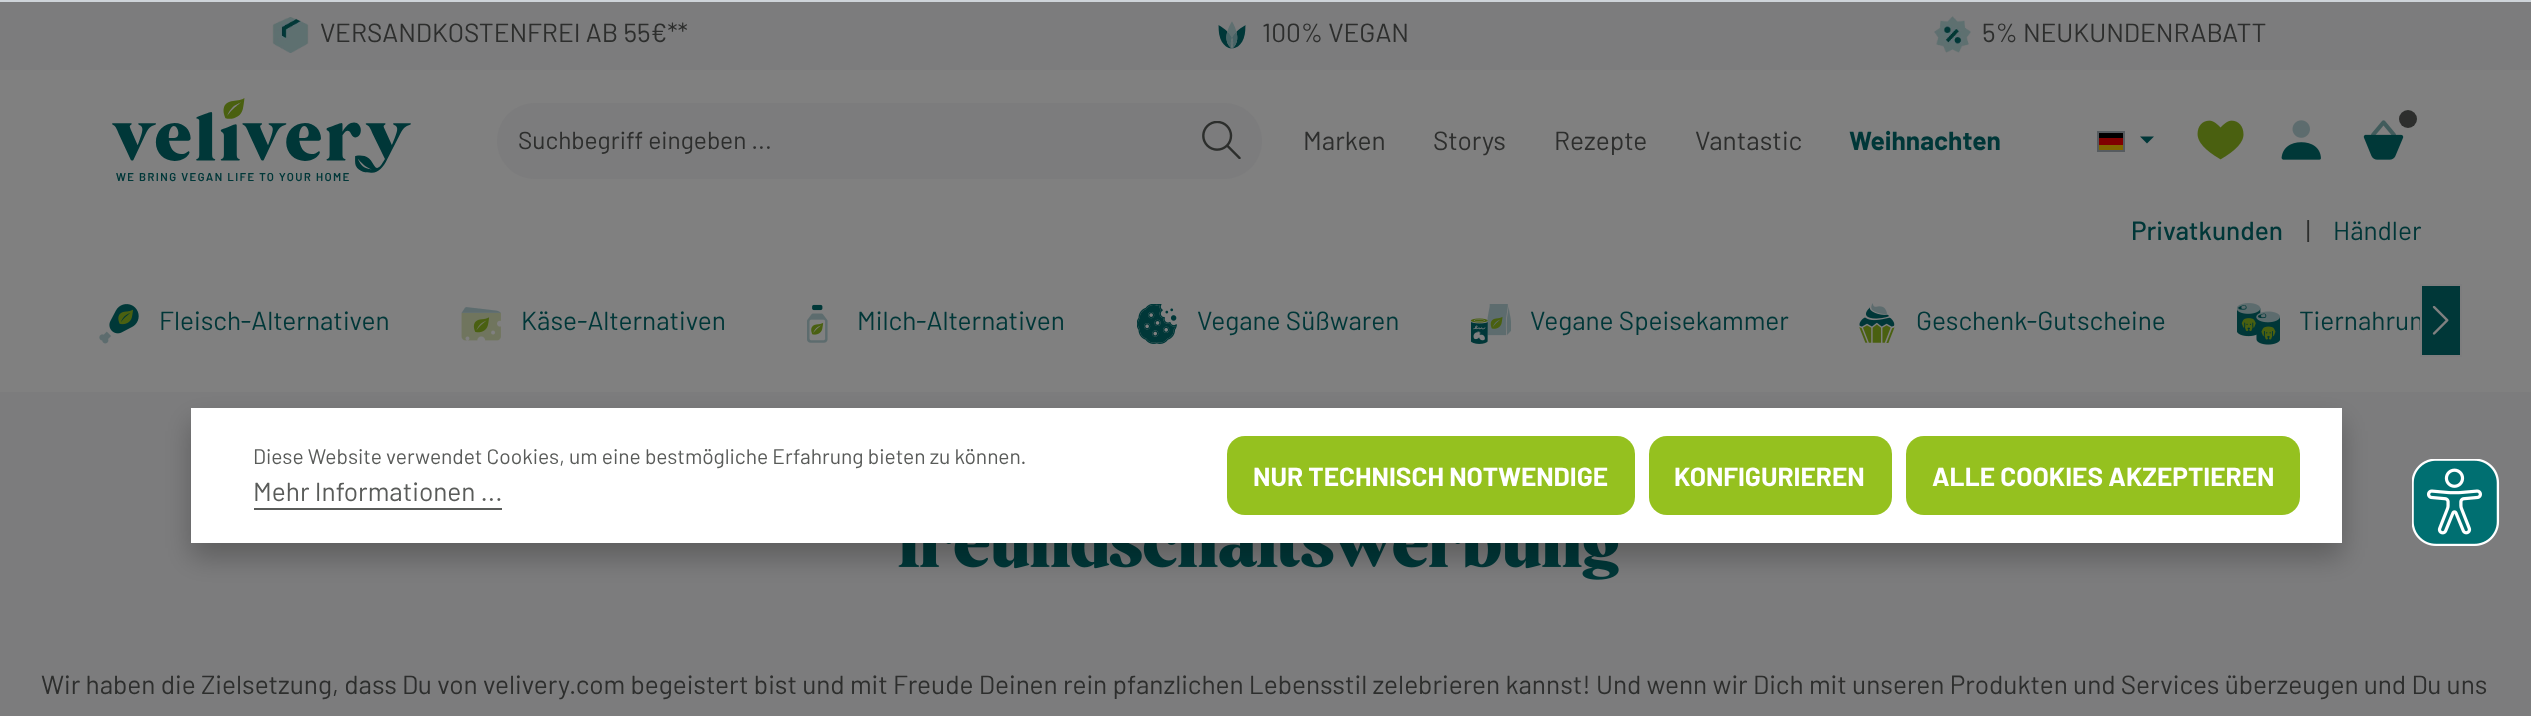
<svg xmlns="http://www.w3.org/2000/svg" width="2531" height="716" viewBox="0 0 2531 716">
  <defs>
    <filter id="blur1" x="-50%" y="-200%" width="200%" height="500%"><feGaussianBlur stdDeviation="14"/></filter>
  </defs>
  <rect width="100%" height="100%" fill="#7c7c7d"/>
  <image x="272" y="17" width="37" height="36" href="img1.png"/>
  <text x="320" y="42" font-family="Barlow" font-size="26.25" fill="#2d2e2d">VERSANDKOSTENFREI AB 55€**</text>
  <image x="1218" y="21" width="28" height="28" href="img2.png"/>
  <text x="1262" y="42" font-family="Barlow" font-size="26.25" fill="#2d2e2d">100% VEGAN</text>
  <image x="1934" y="16" width="37" height="37" href="img3.png"/>
  <text x="1982" y="42" font-family="Barlow" font-size="26.25" fill="#2d2e2d">5% NEUKUNDENRABATT</text>
  <rect x="0" y="70" width="2531" height="322" fill="#808080"/>
  <image x="112" y="98" width="299" height="84" href="img4.png"/>
  <path d="M535 103H1183V179H535C514 179 497 162 497 141C497 120 514 103 535 103Z" fill="#7c7c7d"/>
  <text x="518" y="149" font-family="Barlow" font-size="24.5" fill="#2d2e2d">Suchbegriff eingeben ...</text>
  <path d="M1181 103H1224C1245 103 1262 120 1262 141C1262 162 1245 179 1224 179H1181Z" fill="#7c7c7d"/>
  <image x="1202" y="121" width="39" height="38" href="img5.png"/>
  <text x="1303" y="150" font-family="Barlow" font-size="26.25" fill="#2d2e2d">Marken</text>
  <text x="1433" y="150" font-family="Barlow" font-size="26.25" fill="#2d2e2d">Storys</text>
  <text x="1554" y="150" font-family="Barlow" font-size="26.25" fill="#2d2e2d">Rezepte</text>
  <text x="1695" y="150" font-family="Barlow" font-size="26.25" fill="#2d2e2d">Vantastic</text>
  <text x="1849" y="150" font-family="Barlow" font-size="26.25" font-weight="bold" fill="#003738">Weihnachten</text>
  <rect x="2098" y="133" width="25" height="5" fill="#000000"/>
  <rect x="2098" y="138" width="25" height="7" fill="#800000"/>
  <rect x="2098" y="145" width="25" height="5" fill="#806600"/>
  <rect x="2098" y="132" width="26" height="19" fill="none" stroke="#565b5f" stroke-width="2"/>
  <path d="M2140 136.5H2154L2147 143.5Z" fill="#003738"/>
  <image x="2197" y="120" width="47" height="40" href="img6.png"/>
  <image x="2281" y="120" width="40" height="40" href="img7.png"/>
  <image x="2363" y="120" width="41" height="40" href="img8.png"/>
  <circle cx="2408" cy="119" r="9" fill="#2d2e2d"/>
  <text x="2131" y="240" font-family="Barlow" font-size="26.25" font-weight="500" fill="#003738">Privatkunden</text>
  <text x="2306" y="240" font-family="Barlow" font-size="26.25" fill="#2d2e2d">|</text>
  <text x="2333" y="240" font-family="Barlow" font-size="26.25" fill="#003738">Händler</text>
  <image x="99" y="304" width="40" height="40" href="img9.png"/>
  <text x="159" y="330" font-family="Barlow" font-size="26.25" fill="#003738">Fleisch-Alternativen</text>
  <image x="461" y="307" width="40" height="34" href="img10.png"/>
  <text x="521" y="330" font-family="Barlow" font-size="26.25" fill="#003738">Käse-Alternativen</text>
  <image x="807" y="304" width="21" height="39" href="img11.png"/>
  <text x="857" y="330" font-family="Barlow" font-size="26.25" fill="#003738">Milch-Alternativen</text>
  <image x="1137" y="304" width="40" height="40" href="img12.png"/>
  <text x="1197" y="330" font-family="Barlow" font-size="26.25" fill="#003738">Vegane Süßwaren</text>
  <image x="1471" y="304" width="40" height="40" href="img13.png"/>
  <text x="1530" y="330" font-family="Barlow" font-size="26.25" fill="#003738">Vegane Speisekammer</text>
  <image x="1859" y="303" width="36" height="40" href="img14.png"/>
  <text x="1916" y="330" font-family="Barlow" font-size="26.25" fill="#003738">Geschenk-Gutscheine</text>
  <image x="2237" y="303" width="43" height="42" href="img15.png"/>
  <text x="2299" y="330" font-family="Barlow" font-size="26.25" fill="#003738">Tiernahrun</text>
  <rect x="2421" y="285" width="40" height="71" fill="#003738" stroke="#7d7d7e" stroke-width="2"/>
  <image x="2432" y="306" width="17" height="29" href="img16.png"/>
  <image x="898" y="543" width="721" height="37" href="img17.png"/>
  <text x="41" y="694" font-family="Barlow" font-size="26.25" fill="#2d2e2d">Wir haben die Zielsetzung, dass Du von velivery.com begeistert bist und mit Freude Deinen rein pfanzlichen Lebensstil zelebrieren kannst! Und wenn wir Dich mit unseren Produkten und Services überzeugen und Du uns</text>
  <rect x="0" y="0" width="2531" height="2" fill="#ced4d9"/>
  <rect x="191" y="422" width="2151" height="135" fill="#000000" fill-opacity="0.25" filter="url(#blur1)"/>
  <rect x="191" y="408" width="2151" height="135" fill="#ffffff"/>
  <text x="253" y="464" font-family="Barlow" font-size="21" fill="#595b59">Diese Website verwendet Cookies, um eine bestmögliche Erfahrung bieten zu können.</text>
  <text x="253" y="501" font-family="Barlow" font-size="26.25" fill="#595b59">Mehr Informationen ...</text>
  <rect x="254" y="508" width="248" height="2" fill="#595b59"/>
  <rect x="1227" y="436" width="408" height="79" rx="18" fill="#95c11f"/>
  <text x="1253" y="486" font-family="Barlow" font-size="26.25" font-weight="bold" fill="#ffffff">NUR TECHNISCH NOTWENDIGE</text>
  <rect x="1649" y="436" width="243" height="79" rx="18" fill="#95c11f"/>
  <text x="1674" y="486" font-family="Barlow" font-size="26.25" font-weight="bold" fill="#ffffff">KONFIGURIEREN</text>
  <rect x="1906" y="436" width="394" height="79" rx="18" fill="#95c11f"/>
  <text x="1932" y="486" font-family="Barlow" font-size="26.25" font-weight="bold" fill="#ffffff">ALLE COOKIES AKZEPTIEREN</text>
  <image x="2412" y="459" width="88" height="87" href="img18.png"/>
</svg>
